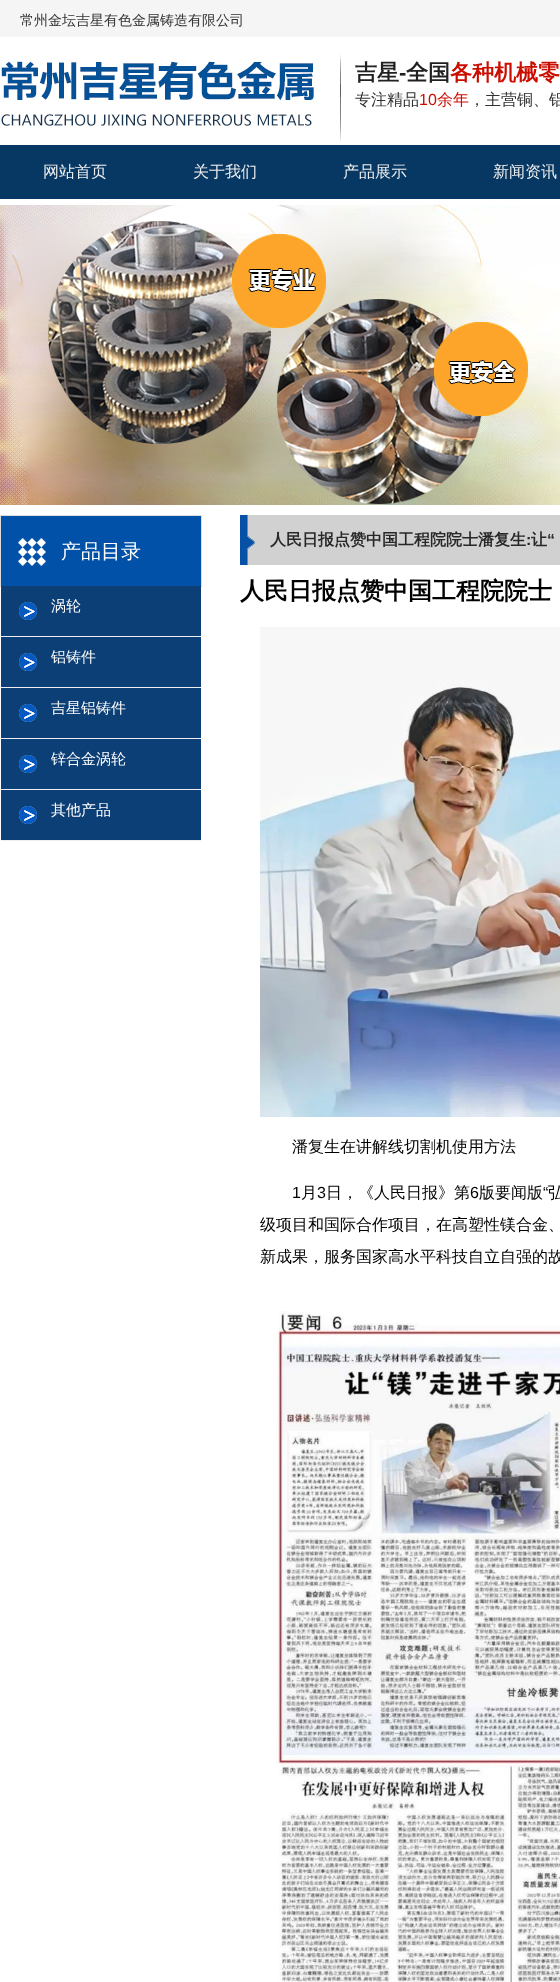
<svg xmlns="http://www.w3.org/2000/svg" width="560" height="1982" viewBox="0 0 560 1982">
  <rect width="100%" height="100%" fill="#ffffff"/>
  <rect x="0" y="0" width="560" height="37" fill="#f5f5f5"/>
  <text x="20" y="25" font-family="WenQuanYi Zen Hei" font-size="14" font-weight="500" fill="#323232">常州金坛吉星有色金属铸造有限公司</text>
  <image x="1" y="53" width="340" height="89" href="img1.png"/>
  <text x="355" y="80" font-family="WenQuanYi Zen Hei" font-size="22" font-weight="bold" fill="#212121">吉星</text>
  <text x="399" y="80" font-family="Liberation Sans" font-size="22" font-weight="bold" fill="#212121">-</text>
  <text x="406" y="80" font-family="WenQuanYi Zen Hei" font-size="22" font-weight="bold" fill="#212121">全国</text>
  <text x="450" y="80" font-family="WenQuanYi Zen Hei" font-size="22" font-weight="bold" fill="#cb0d00">各种机械零</text>
  <text x="355" y="105" font-family="WenQuanYi Zen Hei" font-size="16" font-weight="500" fill="#323232">专注精品</text>
  <text x="419" y="105" font-family="Liberation Sans" font-size="16" fill="#cb0d00">10</text>
  <text x="437" y="105" font-family="WenQuanYi Zen Hei" font-size="16" font-weight="500" fill="#cb0d00">余年</text>
  <text x="469" y="105" font-family="WenQuanYi Zen Hei" font-size="16" font-weight="500" fill="#323232">，主营铜、铝</text>
  <rect x="0" y="145" width="560" height="54" fill="#073763"/>
  <text x="43" y="177" font-family="WenQuanYi Zen Hei" font-size="16" font-weight="500" fill="#eeeeee">网站首页</text>
  <text x="193" y="177" font-family="WenQuanYi Zen Hei" font-size="16" font-weight="500" fill="#eeeeee">关于我们</text>
  <text x="343" y="177" font-family="WenQuanYi Zen Hei" font-size="16" font-weight="500" fill="#eeeeee">产品展示</text>
  <text x="493" y="177" font-family="WenQuanYi Zen Hei" font-size="16" font-weight="500" fill="#eeeeee">新闻资讯</text>
  <image x="0" y="205" width="560" height="300" href="img2.png"/>
  <rect x="0.5" y="515.5" width="201" height="71" fill="none" stroke="#dddddd"/>
  <image x="1" y="516" width="200" height="70" href="img3.png"/>
  <text x="61" y="558" font-family="WenQuanYi Zen Hei" font-size="20" font-weight="500" fill="#ffffff">产品目录</text>
  <rect x="1" y="586" width="200" height="254" fill="#0c3f76"/>
  <image x="19" y="602" width="18" height="18" href="img4.png"/>
  <rect x="1" y="636" width="200" height="1" fill="#eeeeee"/>
  <text x="51" y="611" font-family="WenQuanYi Zen Hei" font-size="15" font-weight="500" fill="#ffffff">涡轮</text>
  <image x="19" y="653" width="18" height="18" href="img4.png"/>
  <rect x="1" y="687" width="200" height="1" fill="#eeeeee"/>
  <text x="51" y="662" font-family="WenQuanYi Zen Hei" font-size="15" font-weight="500" fill="#ffffff">铝铸件</text>
  <image x="19" y="704" width="18" height="18" href="img4.png"/>
  <rect x="1" y="738" width="200" height="1" fill="#eeeeee"/>
  <text x="51" y="713" font-family="WenQuanYi Zen Hei" font-size="15" font-weight="500" fill="#ffffff">吉星铝铸件</text>
  <image x="19" y="755" width="18" height="18" href="img4.png"/>
  <rect x="1" y="789" width="200" height="1" fill="#eeeeee"/>
  <text x="51" y="764" font-family="WenQuanYi Zen Hei" font-size="15" font-weight="500" fill="#ffffff">锌合金涡轮</text>
  <image x="19" y="806" width="18" height="18" href="img4.png"/>
  <rect x="1" y="840" width="200" height="1" fill="#eeeeee"/>
  <text x="51" y="815" font-family="WenQuanYi Zen Hei" font-size="15" font-weight="500" fill="#ffffff">其他产品</text>
  <image x="240" y="515" width="320" height="50" href="img5.png"/>
  <text x="270" y="545" font-family="WenQuanYi Zen Hei" font-size="16" font-weight="bold" fill="#282828">人民日报点赞中国工程院院士潘复生</text>
  <text x="526" y="545" font-family="Liberation Sans" font-size="16" font-weight="bold" fill="#282828">:</text>
  <text x="531" y="545" font-family="WenQuanYi Zen Hei" font-size="16" font-weight="bold" fill="#282828">让</text>
  <text x="547" y="545" font-family="Liberation Sans" font-size="16" font-weight="bold" fill="#282828">“</text>
  <text x="240" y="599" font-family="WenQuanYi Zen Hei" font-size="24" font-weight="bold" fill="#000000">人民日报点赞中国工程院院士</text>
  <image x="260" y="627" width="300" height="490" href="img6.png"/>
  <text x="292" y="1152" font-family="WenQuanYi Zen Hei" font-size="16" font-weight="500" fill="#000000">潘复生在讲解线切割机使用方法</text>
  <text x="292" y="1198" font-family="Liberation Sans" font-size="16" fill="#000000">1</text>
  <text x="301" y="1198" font-family="WenQuanYi Zen Hei" font-size="16" font-weight="500" fill="#000000">月</text>
  <text x="317" y="1198" font-family="Liberation Sans" font-size="16" fill="#000000">3</text>
  <text x="326" y="1198" font-family="WenQuanYi Zen Hei" font-size="16" font-weight="500" fill="#000000">日，《人民日报》第</text>
  <text x="470" y="1198" font-family="Liberation Sans" font-size="16" fill="#000000">6</text>
  <text x="479" y="1198" font-family="WenQuanYi Zen Hei" font-size="16" font-weight="500" fill="#000000">版要闻版</text>
  <text x="543" y="1198" font-family="Liberation Sans" font-size="16" fill="#000000">“</text>
  <text x="548" y="1198" font-family="WenQuanYi Zen Hei" font-size="16" font-weight="500" fill="#000000">弘</text>
  <text x="260" y="1230" font-family="WenQuanYi Zen Hei" font-size="16" font-weight="500" fill="#000000">级项目和国际合作项目，在高塑性镁合金、</text>
  <text x="260" y="1262" font-family="WenQuanYi Zen Hei" font-size="16" font-weight="500" fill="#000000">新成果，服务国家高水平科技自立自强的故</text>
  <image x="276" y="1311" width="284" height="671" href="img7.png"/>
</svg>
